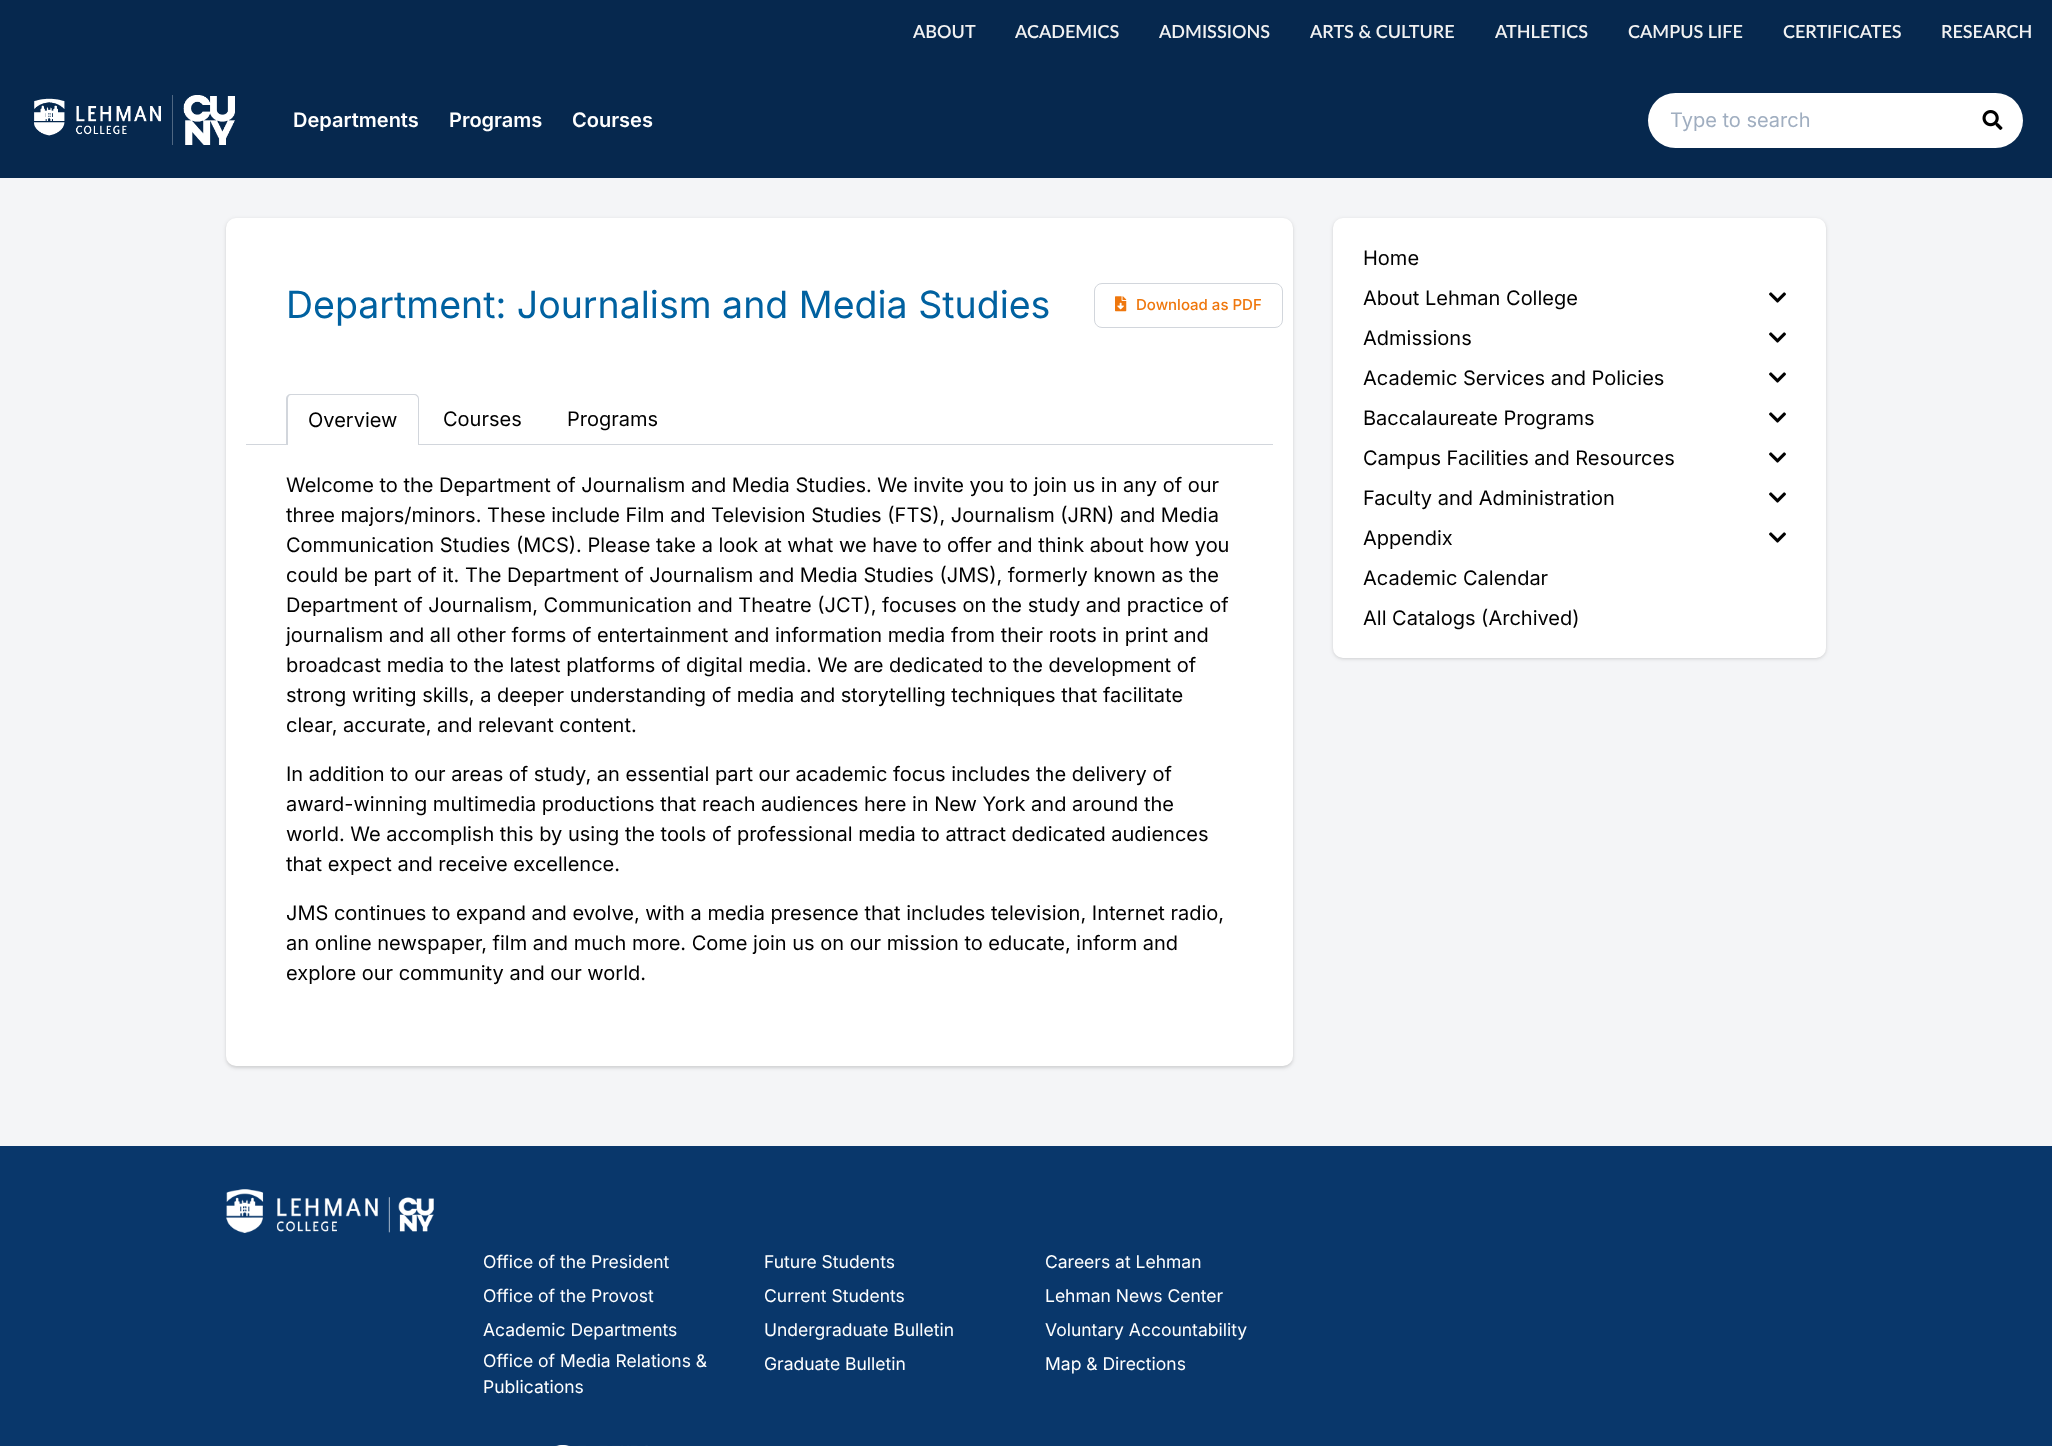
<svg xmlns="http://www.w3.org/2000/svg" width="2052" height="1446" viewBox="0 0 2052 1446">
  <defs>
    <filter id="blur1" x="-50%" y="-200%" width="200%" height="500%"><feGaussianBlur stdDeviation="1"/></filter>
    <filter id="blur2" x="-50%" y="-200%" width="200%" height="500%"><feGaussianBlur stdDeviation="2"/></filter>
  </defs>
  <rect width="100%" height="100%" fill="#f4f5f7"/>
  <rect x="0" y="0" width="2052" height="178" fill="#06284e"/>
  <text x="913" y="38" font-family="Lato" font-size="18" font-weight="600" fill="#f2f2f2">ABOUT</text>
  <text x="1015" y="38" font-family="Lato" font-size="18" font-weight="600" fill="#f2f2f2">ACADEMICS</text>
  <text x="1159" y="38" font-family="Lato" font-size="18" font-weight="600" fill="#f2f2f2">ADMISSIONS</text>
  <text x="1310" y="38" font-family="Lato" font-size="18" font-weight="600" fill="#f2f2f2">ARTS &amp; CULTURE</text>
  <text x="1495" y="38" font-family="Lato" font-size="18" font-weight="600" fill="#f2f2f2">ATHLETICS</text>
  <text x="1628" y="38" font-family="Lato" font-size="18" font-weight="600" fill="#f2f2f2">CAMPUS LIFE</text>
  <text x="1783" y="38" font-family="Lato" font-size="18" font-weight="600" fill="#f2f2f2">CERTIFICATES</text>
  <text x="1941" y="38" font-family="Lato" font-size="18" font-weight="600" fill="#f2f2f2">RESEARCH</text>
  <image x="34" y="95" width="201" height="50" href="img1.png"/>
  <text x="293" y="127" font-family="Inter" font-size="20" font-weight="600" fill="#ffffff">Departments</text>
  <text x="449" y="127" font-family="Inter" font-size="20" font-weight="600" fill="#ffffff">Programs</text>
  <text x="572" y="127" font-family="Inter" font-size="20" font-weight="600" fill="#ffffff">Courses</text>
  <rect x="1648" y="93" width="375" height="55" rx="27.5" fill="#ffffff"/>
  <text x="1670" y="127" font-family="Inter" font-size="20" fill="#a0aec0">Type to search</text>
  <image x="1982" y="110" width="21" height="20" href="img2.png"/>
  <rect x="226" y="219" width="1067" height="849" rx="10" fill="#000000" fill-opacity="0.06" filter="url(#blur1)"/>
  <rect x="226" y="219" width="1067" height="849" rx="10" fill="#000000" fill-opacity="0.1" filter="url(#blur2)"/>
  <rect x="226" y="218" width="1067" height="848" rx="10" fill="#ffffff"/>
  <text x="286" y="318" font-family="Inter" font-size="37.5" fill="#0061a0">Department: Journalism and Media Studies</text>
  <rect x="1094.5" y="283.5" width="188" height="44" rx="7.5" fill="none" stroke="#d2d6dc"/>
  <image x="1115" y="296" width="12" height="16" href="img3.png"/>
  <text x="1136" y="310" font-family="Inter" font-size="15" font-weight="500" fill="#ef770d">Download as PDF</text>
  <rect x="246" y="444" width="1027" height="1" fill="#d2d6dc"/>
  <path d="M292 395H414C416 395 418 397 418 399V445H288V399C288 397 290 395 292 395Z" fill="#ffffff"/>
  <path d="M291 394H414C417 394 419 396 419 399V445H286V399C286 396 288 394 291 394ZM291 395H414C416 395 418 397 418 399V445H288V399C288 397 289 395 291 395Z" fill="#d2d6dc" fill-rule="evenodd"/>
  <text x="308" y="427" font-family="Inter" font-size="20" fill="#000000">Overview</text>
  <text x="443" y="426" font-family="Inter" font-size="20" fill="#000000">Courses</text>
  <text x="567" y="426" font-family="Inter" font-size="20" fill="#000000">Programs</text>
  <text x="286" y="492" font-family="Inter" font-size="20" fill="#000000">Welcome to the Department of Journalism and Media Studies. We invite you to join us in any of our</text>
  <text x="286" y="522" font-family="Inter" font-size="20" fill="#000000">three majors/minors. These include Film and Television Studies (FTS), Journalism (JRN) and Media</text>
  <text x="286" y="552" font-family="Inter" font-size="20" fill="#000000">Communication Studies (MCS). Please take a look at what we have to offer and think about how you</text>
  <text x="286" y="582" font-family="Inter" font-size="20" fill="#000000">could be part of it. The Department of Journalism and Media Studies (JMS), formerly known as the</text>
  <text x="286" y="612" font-family="Inter" font-size="20" fill="#000000">Department of Journalism, Communication and Theatre (JCT), focuses on the study and practice of</text>
  <text x="286" y="642" font-family="Inter" font-size="20" fill="#000000">journalism and all other forms of entertainment and information media from their roots in print and</text>
  <text x="286" y="672" font-family="Inter" font-size="20" fill="#000000">broadcast media to the latest platforms of digital media. We are dedicated to the development of</text>
  <text x="286" y="702" font-family="Inter" font-size="20" fill="#000000">strong writing skills, a deeper understanding of media and storytelling techniques that facilitate</text>
  <text x="286" y="732" font-family="Inter" font-size="20" fill="#000000">clear, accurate, and relevant content.</text>
  <text x="286" y="781" font-family="Inter" font-size="20" fill="#000000">In addition to our areas of study, an essential part our academic focus includes the delivery of</text>
  <text x="286" y="811" font-family="Inter" font-size="20" fill="#000000">award-winning multimedia productions that reach audiences here in New York and around the</text>
  <text x="286" y="841" font-family="Inter" font-size="20" fill="#000000">world. We accomplish this by using the tools of professional media to attract dedicated audiences</text>
  <text x="286" y="871" font-family="Inter" font-size="20" fill="#000000">that expect and receive excellence.</text>
  <text x="286" y="920" font-family="Inter" font-size="20" fill="#000000">JMS continues to expand and evolve, with a media presence that includes television, Internet radio,</text>
  <text x="286" y="950" font-family="Inter" font-size="20" fill="#000000">an online newspaper, film and much more. Come join us on our mission to educate, inform and</text>
  <text x="286" y="980" font-family="Inter" font-size="20" fill="#000000">explore our community and our world.</text>
  <rect x="1333" y="219" width="493" height="440" rx="10" fill="#000000" fill-opacity="0.06" filter="url(#blur1)"/>
  <rect x="1333" y="219" width="493" height="440" rx="10" fill="#000000" fill-opacity="0.1" filter="url(#blur2)"/>
  <rect x="1333" y="218" width="493" height="440" rx="10" fill="#ffffff"/>
  <text x="1363" y="265" font-family="Inter" font-size="20" fill="#000000">Home</text>
  <text x="1363" y="305" font-family="Inter" font-size="20" fill="#000000">About Lehman College</text>
  <image x="1769" y="292" width="17" height="11" href="img4.png"/>
  <text x="1363" y="345" font-family="Inter" font-size="20" fill="#000000">Admissions</text>
  <image x="1769" y="332" width="17" height="11" href="img4.png"/>
  <text x="1363" y="385" font-family="Inter" font-size="20" fill="#000000">Academic Services and Policies</text>
  <image x="1769" y="372" width="17" height="11" href="img4.png"/>
  <text x="1363" y="425" font-family="Inter" font-size="20" fill="#000000">Baccalaureate Programs</text>
  <image x="1769" y="412" width="17" height="11" href="img4.png"/>
  <text x="1363" y="465" font-family="Inter" font-size="20" fill="#000000">Campus Facilities and Resources</text>
  <image x="1769" y="452" width="17" height="11" href="img4.png"/>
  <text x="1363" y="505" font-family="Inter" font-size="20" fill="#000000">Faculty and Administration</text>
  <image x="1769" y="492" width="17" height="11" href="img4.png"/>
  <text x="1363" y="545" font-family="Inter" font-size="20" fill="#000000">Appendix</text>
  <image x="1769" y="532" width="17" height="11" href="img4.png"/>
  <text x="1363" y="585" font-family="Inter" font-size="20" fill="#000000">Academic Calendar</text>
  <text x="1363" y="625" font-family="Inter" font-size="20" fill="#000000">All Catalogs (Archived)</text>
  <rect x="0" y="1146" width="2052" height="300" fill="#09376b"/>
  <image x="226" y="1189" width="208" height="44" href="img5.png"/>
  <text x="483" y="1268" font-family="Inter" font-size="17.5" fill="#ffffff">Office of the President</text>
  <text x="483" y="1302" font-family="Inter" font-size="17.5" fill="#ffffff">Office of the Provost</text>
  <text x="483" y="1336" font-family="Inter" font-size="17.5" fill="#ffffff">Academic Departments</text>
  <text x="483" y="1367" font-family="Inter" font-size="17.5" fill="#ffffff">Office of Media Relations &amp;</text>
  <text x="483" y="1393" font-family="Inter" font-size="17.5" fill="#ffffff">Publications</text>
  <text x="764" y="1268" font-family="Inter" font-size="17.5" fill="#ffffff">Future Students</text>
  <text x="764" y="1302" font-family="Inter" font-size="17.5" fill="#ffffff">Current Students</text>
  <text x="764" y="1336" font-family="Inter" font-size="17.5" fill="#ffffff">Undergraduate Bulletin</text>
  <text x="764" y="1370" font-family="Inter" font-size="17.5" fill="#ffffff">Graduate Bulletin</text>
  <text x="1045" y="1268" font-family="Inter" font-size="17.5" fill="#ffffff">Careers at Lehman</text>
  <text x="1045" y="1302" font-family="Inter" font-size="17.5" fill="#ffffff">Lehman News Center</text>
  <text x="1045" y="1336" font-family="Inter" font-size="17.5" fill="#ffffff">Voluntary Accountability</text>
  <text x="1045" y="1370" font-family="Inter" font-size="17.5" fill="#ffffff">Map &amp; Directions</text>
  <image x="555" y="1445" width="93" height="1" href="img6.png"/>
</svg>
